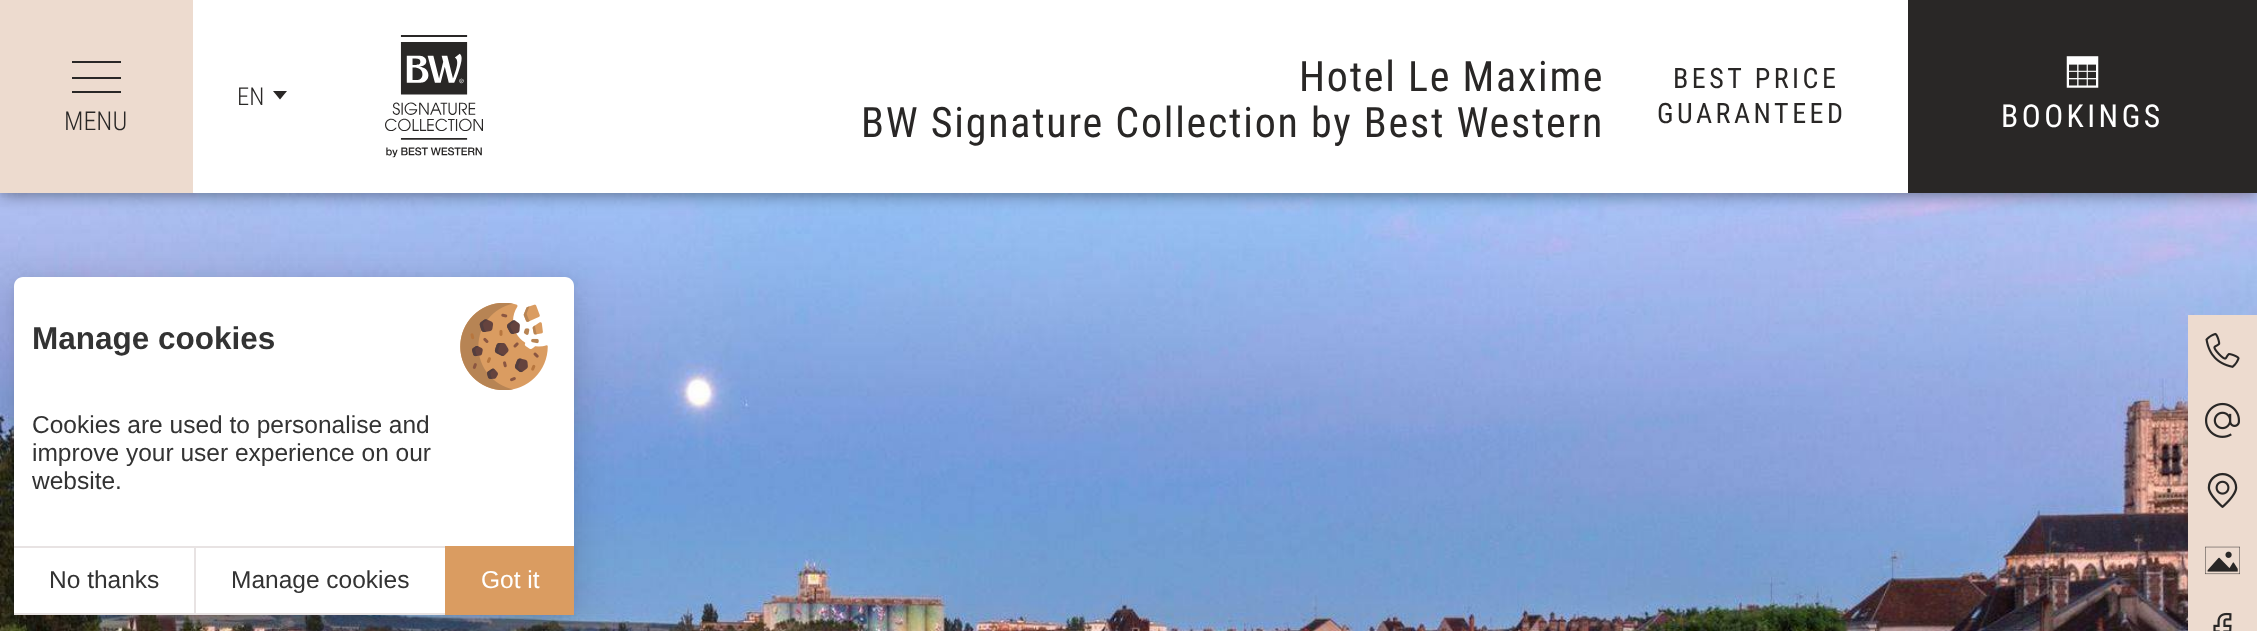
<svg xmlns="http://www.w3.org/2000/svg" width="2257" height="631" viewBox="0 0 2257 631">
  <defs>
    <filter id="blur1" x="-50%" y="-200%" width="200%" height="500%"><feGaussianBlur stdDeviation="9"/></filter>
    <filter id="blur2" x="-50%" y="-200%" width="200%" height="500%"><feGaussianBlur stdDeviation="5"/></filter>
    <filter id="blur3" x="-50%" y="-200%" width="200%" height="500%"><feGaussianBlur stdDeviation="21"/></filter>
  </defs>
  <rect width="100%" height="100%" fill="#ffffff"/>
  <image x="0" y="193" width="2257" height="438" href="img3.png"/>
  <rect x="0" y="0" width="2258" height="193" fill="#000000" fill-opacity="0.5" filter="url(#blur1)"/>
  <rect x="193" y="0" width="1715" height="193" fill="#ffffff"/>
  <text x="237" y="105" font-family="Roboto Condensed" font-size="24.5" font-weight="300" fill="#292726">EN</text>
  <path d="M280 99.5L273 91H287Z" fill="#292726"/>
  <image x="385" y="35" width="98" height="123" href="img1.png"/>
  <rect x="0" y="0" width="193" height="193" fill="#eddbcf"/>
  <rect x="72" y="61" width="49" height="2" fill="#292726"/>
  <rect x="72" y="77" width="49" height="2" fill="#292726"/>
  <rect x="72" y="91" width="49" height="2" fill="#292726"/>
  <text x="64" y="130" font-family="Roboto Condensed" font-size="26" font-weight="300" fill="#292726">MENU</text>
  <text x="1299" y="91" font-family="Roboto Condensed" font-size="42" letter-spacing="1.75" fill="#292726">Hotel Le Maxime</text>
  <text x="861" y="137" font-family="Roboto Condensed" font-size="42" letter-spacing="1.75" fill="#292726">BW Signature Collection by Best Western</text>
  <text x="1673" y="88" font-family="Roboto Condensed" font-size="28" letter-spacing="3.5" fill="#292726">BEST PRICE</text>
  <text x="1657" y="123" font-family="Roboto Condensed" font-size="28" letter-spacing="3.5" fill="#292726">GUARANTEED</text>
  <rect x="1908" y="0" width="349" height="193" fill="#292726"/>
  <image x="2066" y="56" width="33" height="32" href="img2.png"/>
  <text x="2001" y="127" font-family="Roboto Condensed" font-size="31.5" letter-spacing="3.5" fill="#ffffff">BOOKINGS</text>
  <rect x="14" y="280" width="560" height="338" rx="9" fill="#000000" fill-opacity="0.05" filter="url(#blur2)"/>
  <rect x="14" y="284" width="560" height="337" rx="9" fill="#000000" fill-opacity="0.15" filter="url(#blur3)"/>
  <path d="M23 277H565C570 277 574 281 574 286V614H14V286C14 281 18 277 23 277Z" fill="#ffffff"/>
  <image x="460" y="303" width="88" height="87" href="img4.png"/>
  <text x="32" y="349" font-family="Liberation Sans" font-size="31.5" font-weight="bold" fill="#333333">Manage cookies</text>
  <text x="32" y="433" font-family="Liberation Sans" font-size="24.5" fill="#333333">Cookies are used to personalise and</text>
  <text x="32" y="461" font-family="Liberation Sans" font-size="24.5" fill="#333333">improve your user experience on our</text>
  <text x="32" y="489" font-family="Liberation Sans" font-size="24.5" fill="#333333">website.</text>
  <rect x="14" y="546" width="431" height="2" fill="#e8e3e3"/>
  <rect x="14" y="613" width="431" height="2" fill="#e8e3e3"/>
  <text x="49" y="588" font-family="Liberation Sans" font-size="24.5" fill="#333333">No thanks</text>
  <rect x="194" y="546" width="2" height="68" fill="#e8e3e3"/>
  <text x="231" y="588" font-family="Liberation Sans" font-size="24.5" fill="#333333">Manage cookies</text>
  <rect x="445" y="546" width="129" height="69" fill="#da9c61"/>
  <text x="481" y="588" font-family="Liberation Sans" font-size="24.5" fill="#ffffff">Got it</text>
  <rect x="2188" y="315" width="69" height="316" fill="#eddbcf"/>
  <image x="2205" y="332" width="35" height="36" href="img5.png"/>
  <image x="2205" y="402" width="35" height="36" href="img6.png"/>
  <image x="2207" y="472" width="31" height="36" href="img7.png"/>
  <image x="2205" y="546" width="35" height="29" href="img8.png"/>
  <image x="2213" y="612" width="19" height="19" href="img9.png"/>
</svg>
